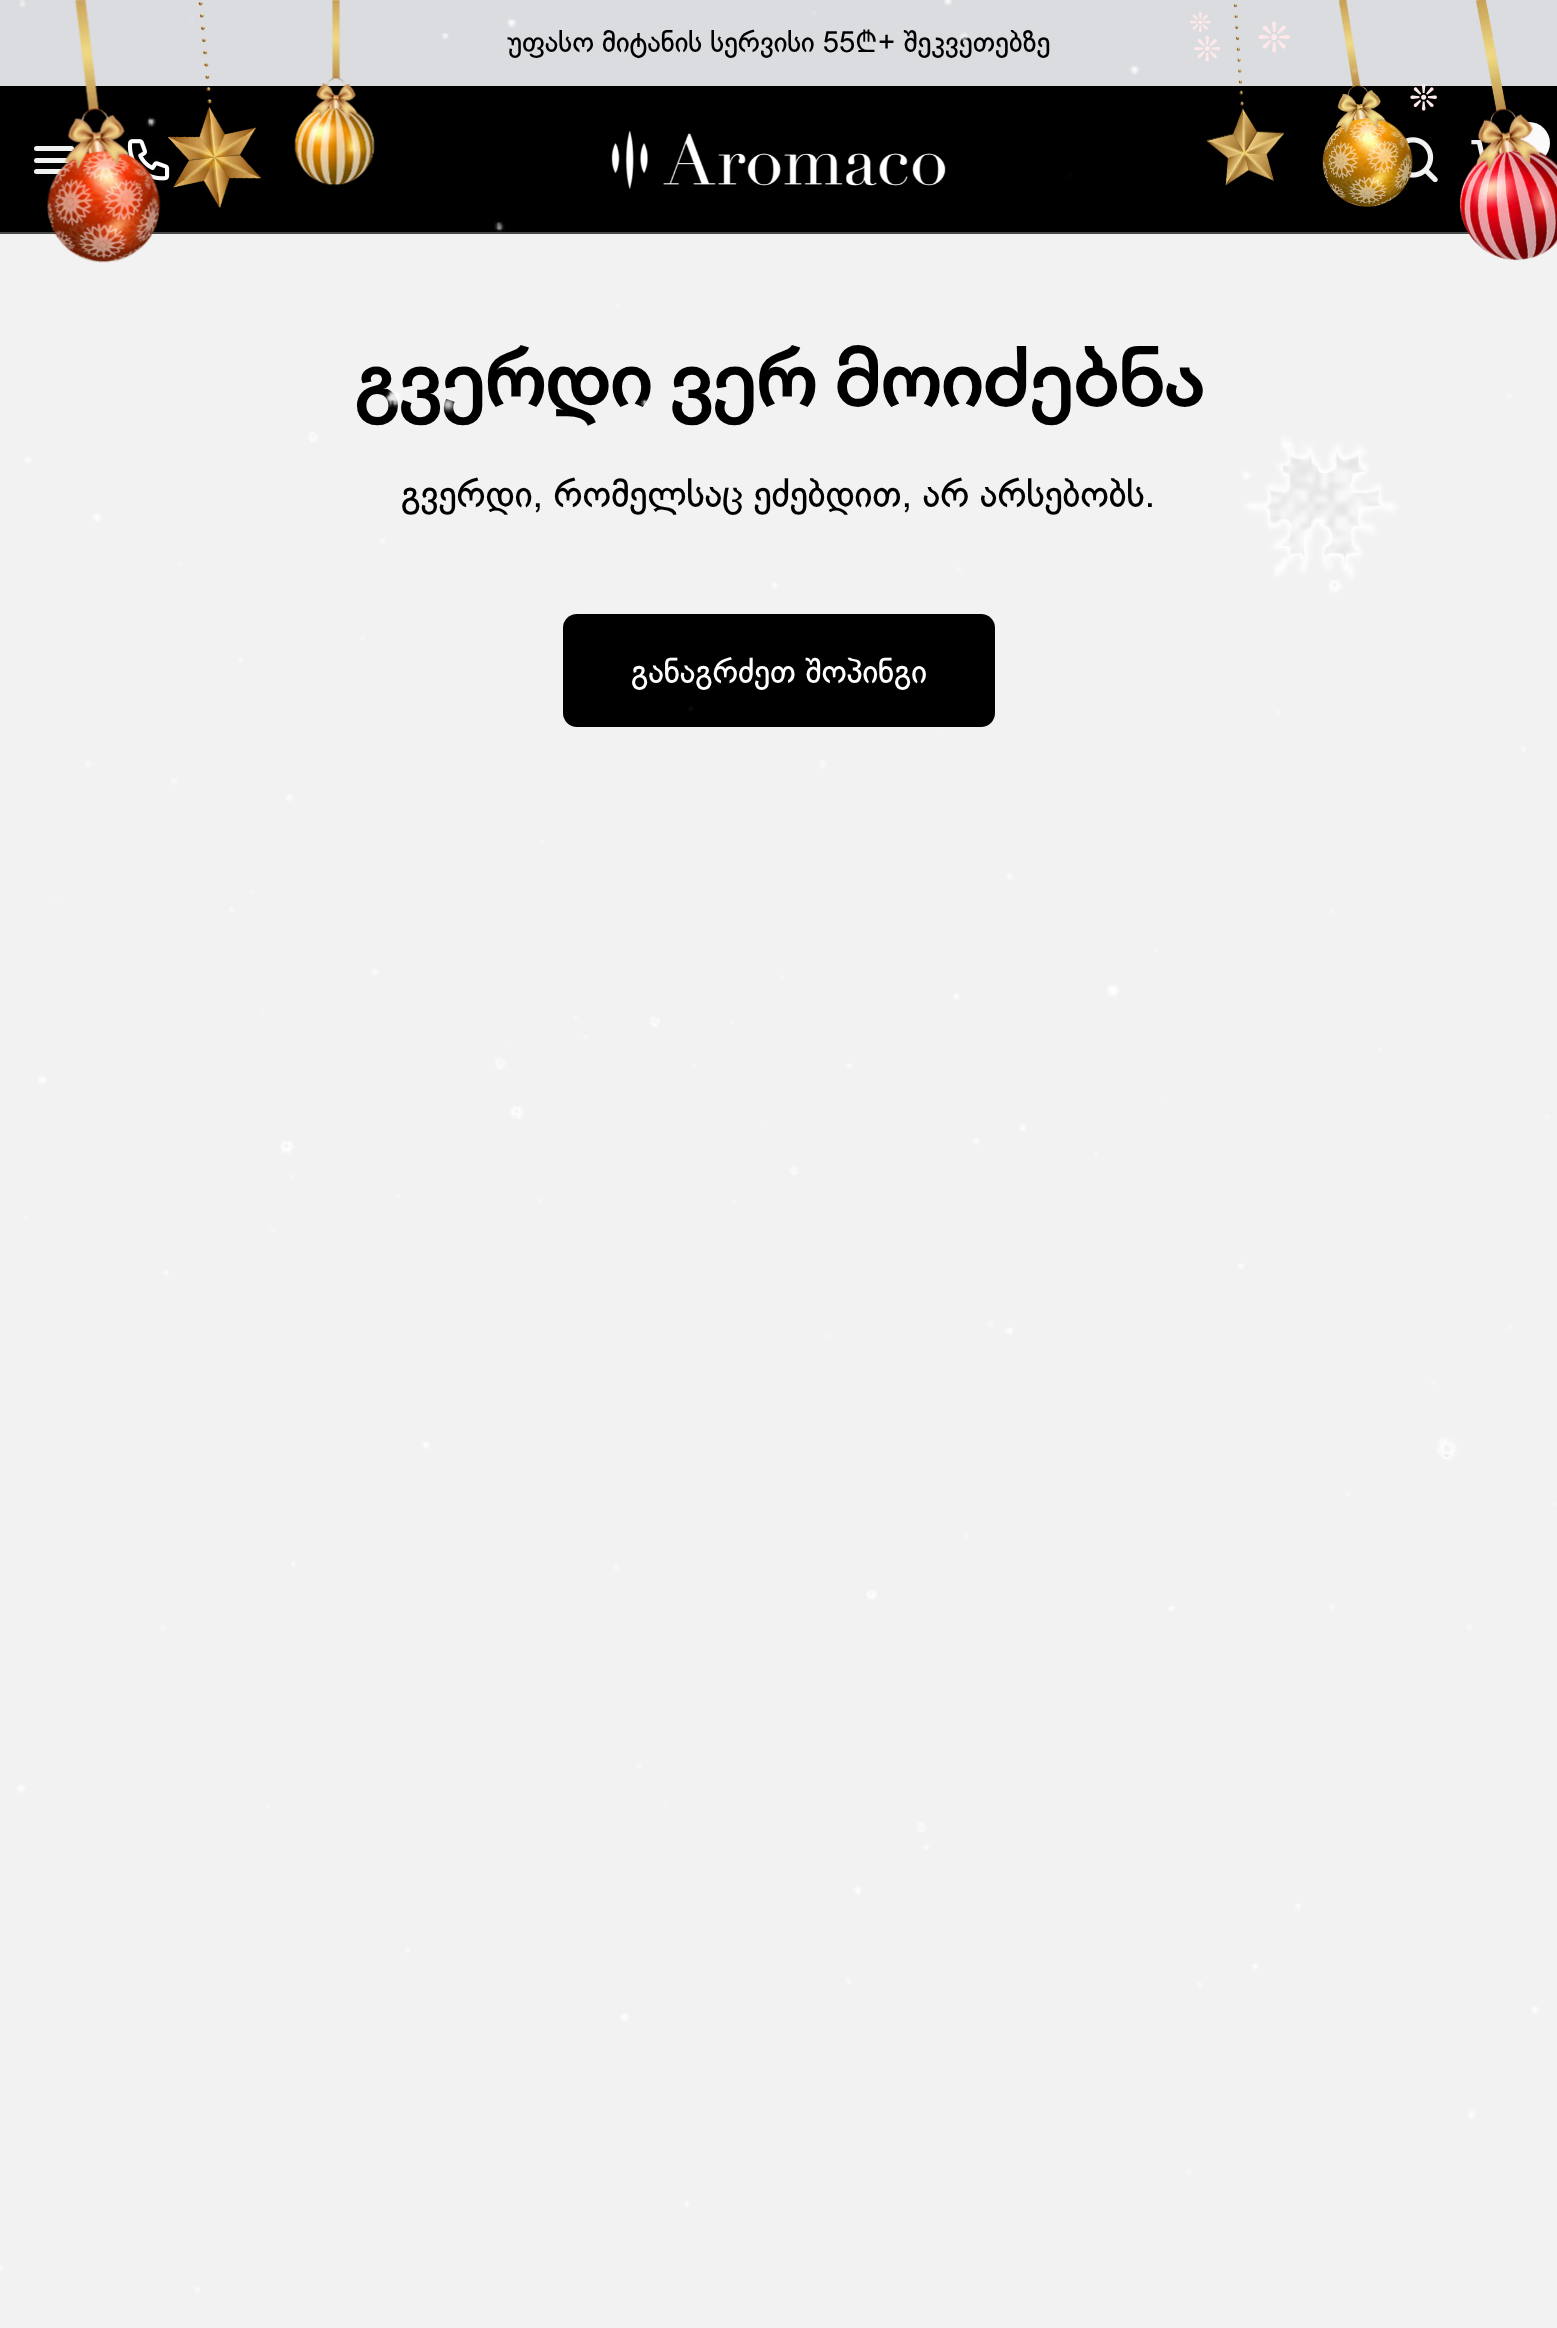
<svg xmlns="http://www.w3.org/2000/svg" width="1557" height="2328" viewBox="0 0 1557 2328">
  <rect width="100%" height="100%" fill="#000000"/>
  <rect x="0" y="0" width="1557" height="86" fill="#dadce0"/>
  <text x="507" y="52" font-family="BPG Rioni" font-size="29.25" fill="#000000">უფასო მიტანის სერვისი 55</text>
  <text x="855" y="52" font-family="Noto Sans" font-size="29.25" fill="#000000">₾</text>
  <text x="878" y="52" font-family="BPG Rioni" font-size="29.25" fill="#000000">+ შეკვეთებზე</text>
  <rect x="34" y="146" width="40" height="5" rx="2.5" fill="#f2f2f2"/>
  <rect x="34" y="158" width="40" height="5" rx="2.5" fill="#f2f2f2"/>
  <rect x="34" y="169" width="40" height="5" rx="2.5" fill="#f2f2f2"/>
  <image x="127" y="139" width="43" height="42" href="img1.png"/>
  <image x="611" y="131" width="335" height="58" href="img2.png"/>
  <image x="1405" y="137" width="33" height="45" href="img3.png"/>
  <image x="1471" y="140" width="13" height="17" href="img4.png"/>
  <circle cx="1529" cy="143" r="21" fill="#fafafa"/>
  <rect x="0" y="232" width="1470" height="2" fill="#494949"/>
  <rect x="0" y="234" width="1557" height="2094" fill="#f2f2f2"/>
  <text x="354" y="406" font-family="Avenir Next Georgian" font-size="76.5" font-weight="bold" letter-spacing="-1.5" fill="#000000">გვერდი ვერ მოიძებნა</text>
  <text x="401" y="507" font-family="BPG Rioni" font-size="38.25" fill="#000000">გვერდი, რომელსაც ეძებდით, არ არსებობს.</text>
  <rect x="563" y="614" width="432" height="113" rx="14" fill="#000000"/>
  <text x="631" y="683" font-family="BPG Rioni" font-size="33.75" fill="#ffffff">განაგრძეთ შოპინგი</text>
  <image x="47" y="0" width="114" height="263" href="img6.png"/>
  <image x="167" y="1" width="95" height="207" href="img7.png"/>
  <image x="294" y="0" width="81" height="186" href="img8.png"/>
  <text x="1189" y="32" font-family="DejaVu Sans" font-size="27" fill="#ffe8e8">❊</text>
  <text x="1257" y="52" font-family="DejaVu Sans" font-size="41" fill="#ffe8e8">❊</text>
  <text x="1193" y="61" font-family="DejaVu Sans" font-size="34" fill="#ffe8e8">❊</text>
  <image x="1206" y="3" width="79" height="183" href="img9.png"/>
  <text x="1409" y="110" font-family="DejaVu Sans" font-size="35" fill="#ffe8e8">❊</text>
  <image x="1322" y="0" width="91" height="207" href="img10.png"/>
  <image x="1459" y="0" width="98" height="261" href="img11.png"/>
  <image x="0" y="0" width="1557" height="2293" href="img5.png"/>
</svg>
